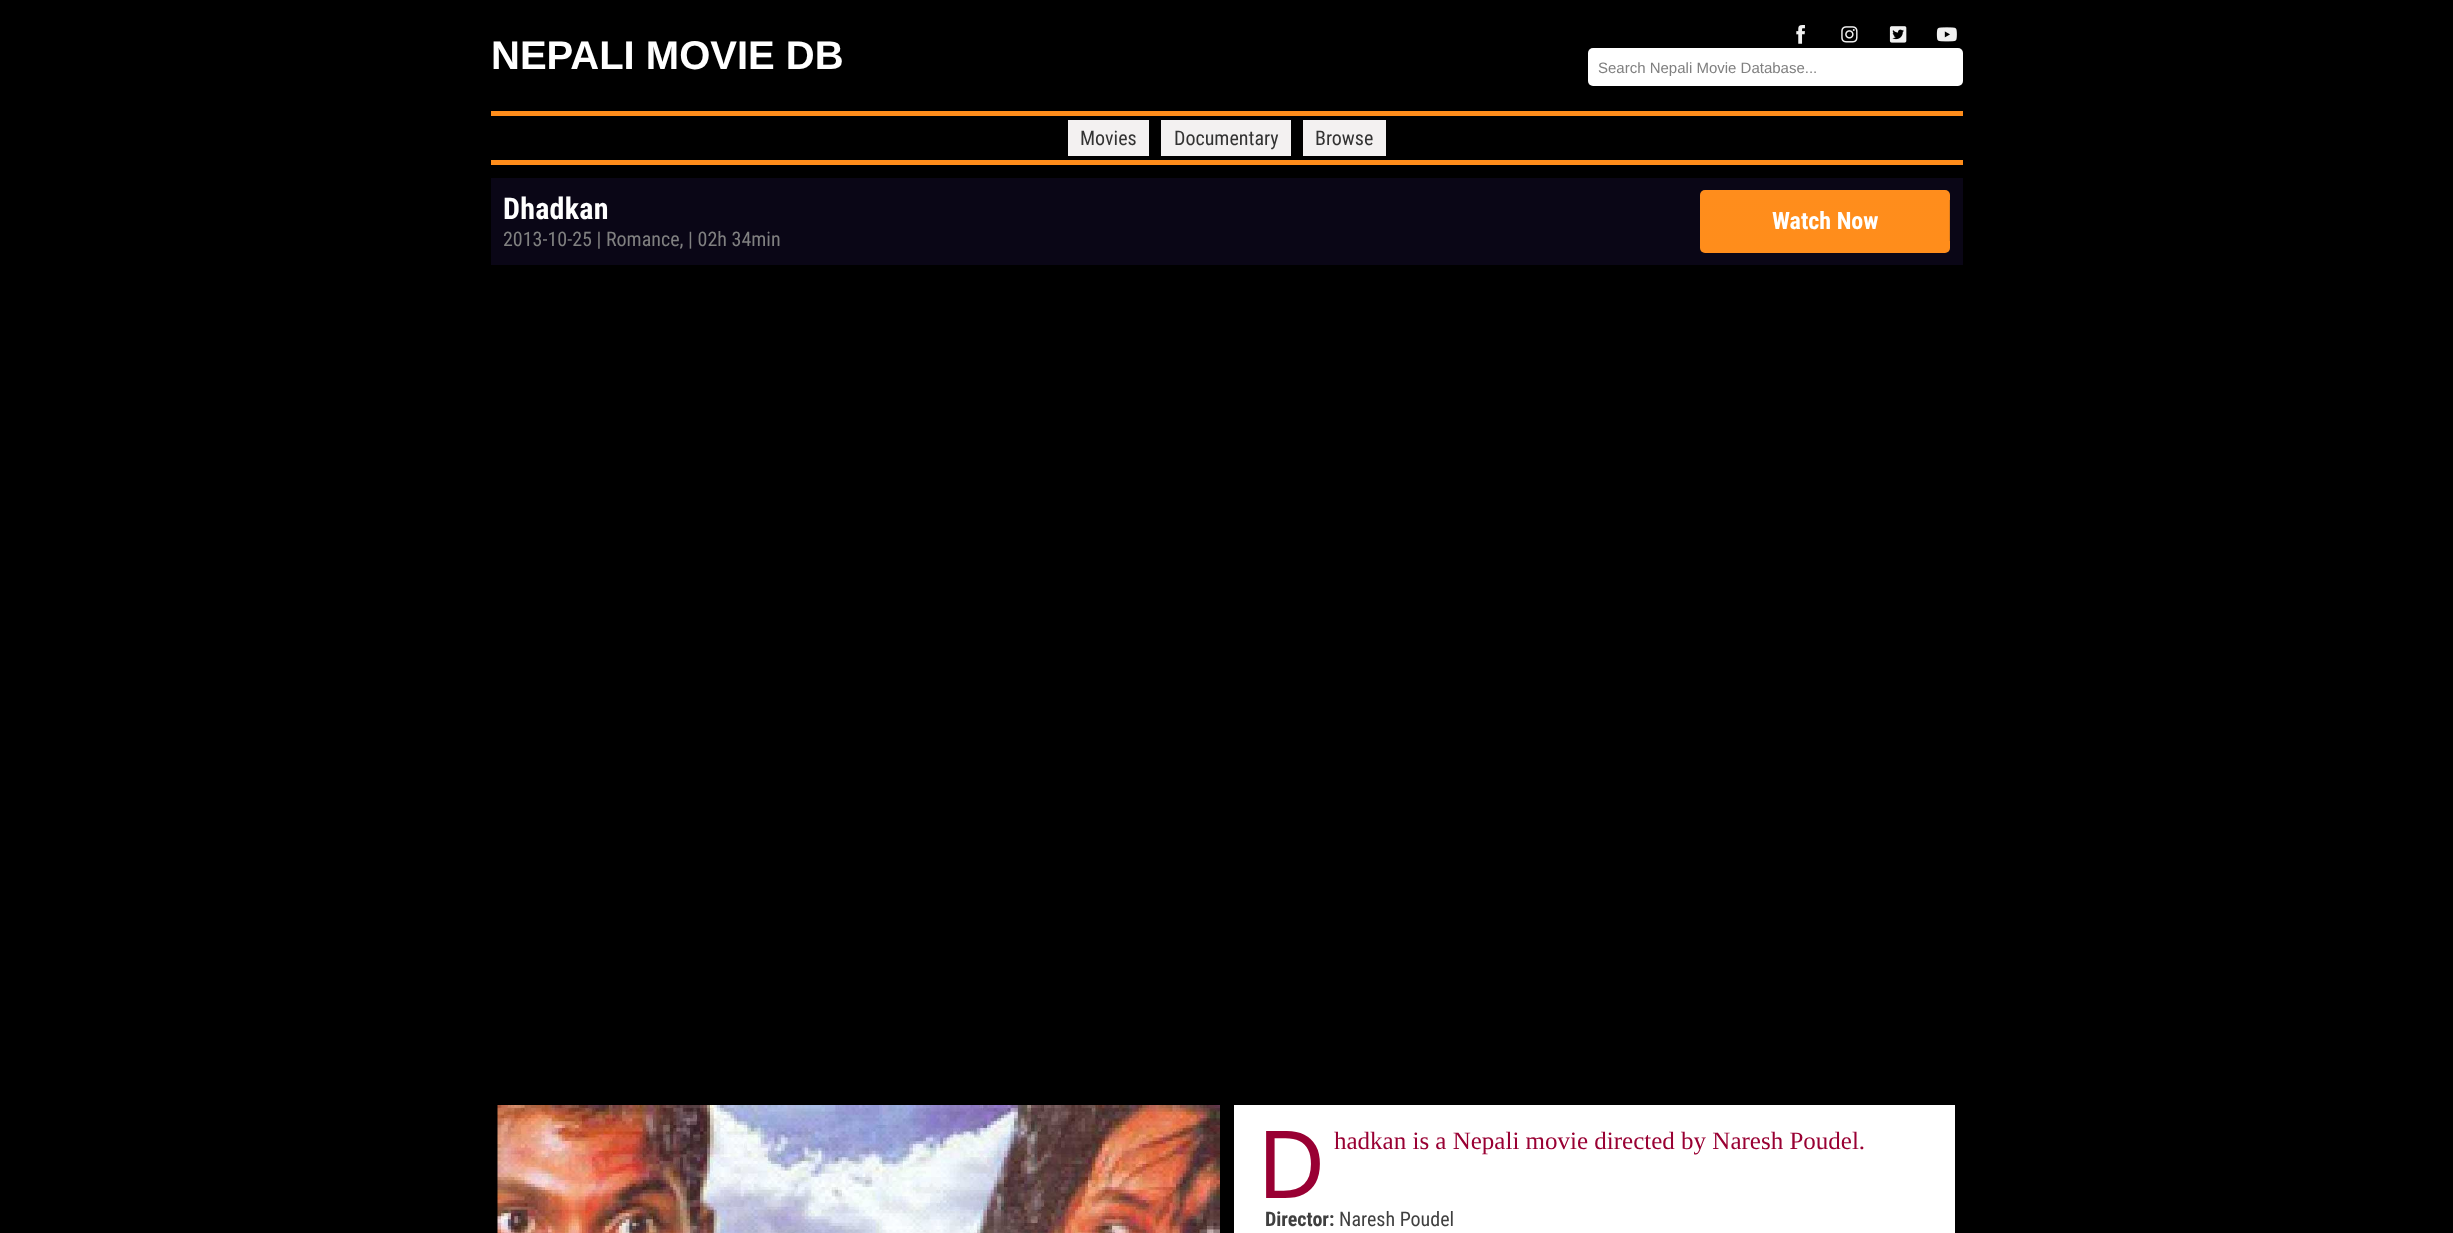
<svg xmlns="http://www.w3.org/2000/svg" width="2453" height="1233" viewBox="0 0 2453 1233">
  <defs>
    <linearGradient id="g1" gradientUnits="userSpaceOnUse" x1="1825" y1="253" x2="1825" y2="190"><stop offset="0" stop-color="#ff8d1b"/><stop offset="1" stop-color="#ff8d1c"/></linearGradient>
  </defs>
  <rect width="100%" height="100%" fill="#000000"/>
  <text x="491" y="69" font-family="Liberation Sans" font-size="40" font-weight="bold" fill="#ffffff">NEPALI MOVIE DB</text>
  <image x="1796" y="25" width="9" height="19" href="img1.png"/>
  <image x="1841" y="26" width="17" height="17" href="img2.png"/>
  <image x="1889" y="26" width="18" height="17" href="img3.png"/>
  <image x="1936" y="27" width="21" height="15" href="img4.png"/>
  <rect x="1588" y="48" width="375" height="38" rx="5" fill="#ffffff"/>
  <text x="1598" y="73" font-family="Liberation Sans" font-size="15" fill="#808080">Search Nepali Movie Database...</text>
  <rect x="491" y="111" width="1472" height="5" fill="#ff8d1b"/>
  <rect x="491" y="160" width="1472" height="5" fill="#ff8d1b"/>
  <rect x="1068" y="120" width="81" height="36" fill="#f3f1f1"/>
  <text x="1080" y="145" font-family="Roboto Condensed" font-size="20" fill="#333333">Movies</text>
  <rect x="1161" y="120" width="130" height="36" fill="#f3f1f1"/>
  <text x="1174" y="145" font-family="Roboto Condensed" font-size="20" fill="#333333">Documentary</text>
  <rect x="1303" y="120" width="83" height="36" fill="#f3f1f1"/>
  <text x="1315" y="145" font-family="Roboto Condensed" font-size="20" fill="#333333">Browse</text>
  <rect x="491" y="178" width="1472" height="87" fill="#0a0616"/>
  <text x="503" y="219" font-family="Roboto Condensed" font-size="30" font-weight="bold" letter-spacing="0.25" fill="#ffffff">Dhadkan</text>
  <text x="503" y="246" font-family="Roboto Condensed" font-size="20" fill="#808080">2013-10-25 | Romance, | 02h 34min</text>
  <rect x="1700" y="190" width="250" height="63" rx="5" fill="url(#g1)"/>
  <rect x="1949" y="200" width="1" height="41" fill="#e07e1b"/>
  <text x="1772" y="229" font-family="Roboto Condensed" font-size="24" font-weight="bold" fill="#ffffff">Watch Now</text>
  <image x="497" y="1105" width="723" height="128" href="img5.png"/>
  <rect x="1234" y="1105" width="721" height="128" fill="#ffffff"/>
  <text x="1257" y="1198" font-family="Noto Sans" font-size="94" fill="#990033">D</text>
  <text x="1334" y="1149" font-family="Liberation Serif" font-size="25" fill="#990033">hadkan is a Nepali movie directed by Naresh Poudel.</text>
  <text x="1265" y="1226" font-family="Roboto Condensed" font-size="20" font-weight="bold" fill="#404040">Director:</text>
  <text x="1339" y="1226" font-family="Roboto Condensed" font-size="20" fill="#404040">Naresh Poudel</text>
</svg>
